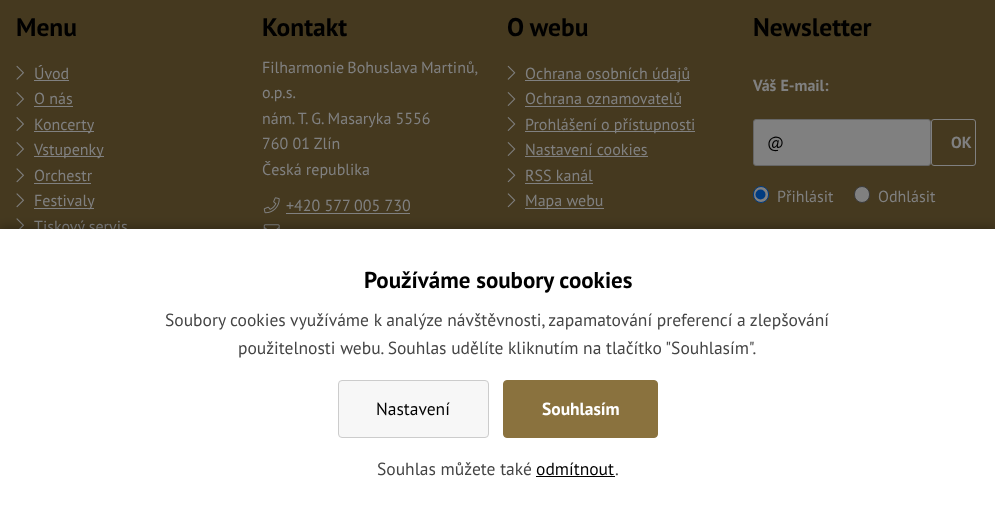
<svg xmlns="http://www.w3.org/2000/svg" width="995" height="532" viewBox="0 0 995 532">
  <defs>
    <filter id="blur1" x="-50%" y="-200%" width="200%" height="500%"><feGaussianBlur stdDeviation="5"/></filter>
  </defs>
  <rect width="100%" height="100%" fill="#45391f"/>
  <text x="16" y="36" font-family="PT Sans" font-size="25.5" font-weight="bold" fill="#000000">Menu</text>
  <image x="16" y="65" width="8" height="15" href="img1.png"/>
  <text x="34" y="79" font-family="PT Sans" font-size="16" fill="#808080">Úvod</text>
  <rect x="34" y="80" width="35" height="1" fill="#808080"/>
  <image x="16" y="92" width="8" height="14" href="img2.png"/>
  <text x="34" y="104" font-family="PT Sans" font-size="16" fill="#808080">O nás</text>
  <rect x="34" y="106" width="39" height="1" fill="#808080"/>
  <image x="16" y="117" width="8" height="14" href="img2.png"/>
  <rect x="34" y="131" width="60" height="1" fill="#808080"/>
  <text x="34" y="130" font-family="PT Sans" font-size="16" fill="#808080">Koncerty</text>
  <image x="16" y="142" width="8" height="14" href="img2.png"/>
  <rect x="34" y="156" width="70" height="1" fill="#808080"/>
  <text x="34" y="155" font-family="PT Sans" font-size="16" fill="#808080">Vstupenky</text>
  <image x="16" y="168" width="8" height="15" href="img3.png"/>
  <text x="34" y="181" font-family="PT Sans" font-size="16" fill="#808080">Orchestr</text>
  <rect x="34" y="183" width="57" height="1" fill="#808080"/>
  <image x="16" y="193" width="8" height="15" href="img3.png"/>
  <rect x="34" y="208" width="60" height="1" fill="#808080"/>
  <text x="34" y="206" font-family="PT Sans" font-size="16" fill="#808080">Festivaly</text>
  <image x="16" y="218" width="8" height="11" href="img4.png"/>
  <text x="34" y="232" font-family="PT Sans" font-size="16" fill="#808080">Tiskový servis</text>
  <text x="262" y="36" font-family="PT Sans" font-size="25.5" font-weight="bold" fill="#000000">Kontakt</text>
  <text x="262" y="73" word-spacing="-1" font-family="PT Sans" font-size="16" fill="#808080">Filharmonie Bohuslava Martinů,</text>
  <text x="262" y="98" font-family="PT Sans" font-size="16" fill="#808080">o.p.s.</text>
  <text x="262" y="124" font-family="PT Sans" font-size="16" fill="#808080">nám. T. G. Masaryka 5556</text>
  <text x="262" y="149" font-family="PT Sans" font-size="16" fill="#808080">760 01 Zlín</text>
  <text x="262" y="175" font-family="PT Sans" font-size="16" fill="#808080">Česká republika</text>
  <image x="263" y="197" width="17" height="17" href="img5.png"/>
  <text x="286" y="211" font-family="PT Sans" font-size="16" fill="#808080">+420 577 005 730</text>
  <rect x="286" y="213" width="124" height="1" fill="#808080"/>
  <image x="263" y="224" width="17" height="5" href="img6.png"/>
  <text x="507" y="36" font-family="PT Sans" font-size="25.5" font-weight="bold" fill="#000000">O webu</text>
  <image x="507" y="65" width="9" height="15" href="img7.png"/>
  <rect x="525" y="80" width="165" height="1" fill="#808080"/>
  <text x="525" y="79" font-family="PT Sans" font-size="16" fill="#808080">Ochrana osobních údajů</text>
  <image x="507" y="92" width="9" height="14" href="img8.png"/>
  <text x="525" y="104" font-family="PT Sans" font-size="16" fill="#808080">Ochrana oznamovatelů</text>
  <rect x="525" y="106" width="156" height="1" fill="#808080"/>
  <image x="507" y="117" width="9" height="14" href="img8.png"/>
  <rect x="525" y="131" width="170" height="1" fill="#808080"/>
  <text x="525" y="130" font-family="PT Sans" font-size="16" fill="#808080">Prohlášení o přístupnosti</text>
  <image x="507" y="142" width="9" height="14" href="img8.png"/>
  <text x="525" y="155" font-family="PT Sans" font-size="16" fill="#808080">Nastavení cookies</text>
  <rect x="525" y="156" width="123" height="1" fill="#808080"/>
  <image x="507" y="168" width="9" height="15" href="img9.png"/>
  <text x="525" y="181" font-family="PT Sans" font-size="16" fill="#808080">RSS kanál</text>
  <rect x="525" y="183" width="68" height="1" fill="#808080"/>
  <image x="507" y="193" width="9" height="15" href="img9.png"/>
  <rect x="525" y="208" width="79" height="1" fill="#808080"/>
  <text x="525" y="206" font-family="PT Sans" font-size="16" fill="#808080">Mapa webu</text>
  <text x="753" y="36" font-family="PT Sans" font-size="25.5" font-weight="bold" fill="#000000">Newsletter</text>
  <text x="753" y="91" font-family="PT Sans" font-size="16" font-weight="bold" fill="#808080">Váš E-mail:</text>
  <rect x="753.5" y="119.5" width="177" height="46" rx="2.5" fill="#808080" stroke="#666666"/>
  <text x="767" y="148" font-family="PT Sans" font-size="16" fill="#000000">@</text>
  <rect x="931.5" y="119.5" width="44" height="46" rx="2.5" fill="none" stroke="#808080"/>
  <text x="951" y="148" font-family="PT Sans" font-size="16" font-weight="bold" fill="#808080">OK</text>
  <rect x="753.5" y="186.5" width="15" height="16" rx="7.5" fill="#808080" stroke="#003b80"/>
  <circle cx="760.5" cy="194.5" r="5" fill="#003b80"/>
  <text x="777" y="202" font-family="PT Sans" font-size="16" fill="#808080">Přihlásit</text>
  <rect x="854.5" y="186.5" width="15" height="16" rx="7.5" fill="#808080" stroke="#3b3b3b"/>
  <text x="878" y="202" font-family="PT Sans" font-size="16" fill="#808080">Odhlásit</text>
  <rect x="0" y="226" width="995" height="304" fill="#000000" fill-opacity="0.25" filter="url(#blur1)"/>
  <rect x="0" y="229" width="995" height="303" fill="#ffffff"/>
  <text x="364" y="288" font-family="PT Sans" font-size="23" font-weight="bold" fill="#000000">Používáme soubory cookies</text>
  <text x="165" y="326" font-family="PT Sans" font-size="17.5" fill="#444444">Soubory cookies využíváme k analýze návštěvnosti, zapamatování preferencí a zlepšování</text>
  <text x="238" y="354" font-family="PT Sans" font-size="17.5" fill="#444444">použitelnosti webu. Souhlas udělíte kliknutím na tlačítko "Souhlasím".</text>
  <rect x="338.5" y="380.5" width="150" height="57" rx="3.5" fill="#f7f7f7" stroke="#cccccc"/>
  <text x="376" y="415" font-family="PT Sans" font-size="17.5" fill="#000000">Nastavení</text>
  <rect x="503.5" y="380.5" width="154" height="57" rx="3.5" fill="#8a723e" stroke="#8a723e"/>
  <text x="542" y="415" font-family="PT Sans" font-size="17.5" font-weight="bold" fill="#ffffff">Souhlasím</text>
  <text x="377" y="475" font-family="PT Sans" font-size="17.5" fill="#444444">Souhlas můžete také</text>
  <text x="536" y="475" font-family="PT Sans" font-size="17.5" fill="#000000">odmítnout</text>
  <rect x="536" y="476" width="79" height="1" fill="#000000"/>
  <text x="615" y="475" font-family="PT Sans" font-size="17.5" fill="#444444">.</text>
</svg>
